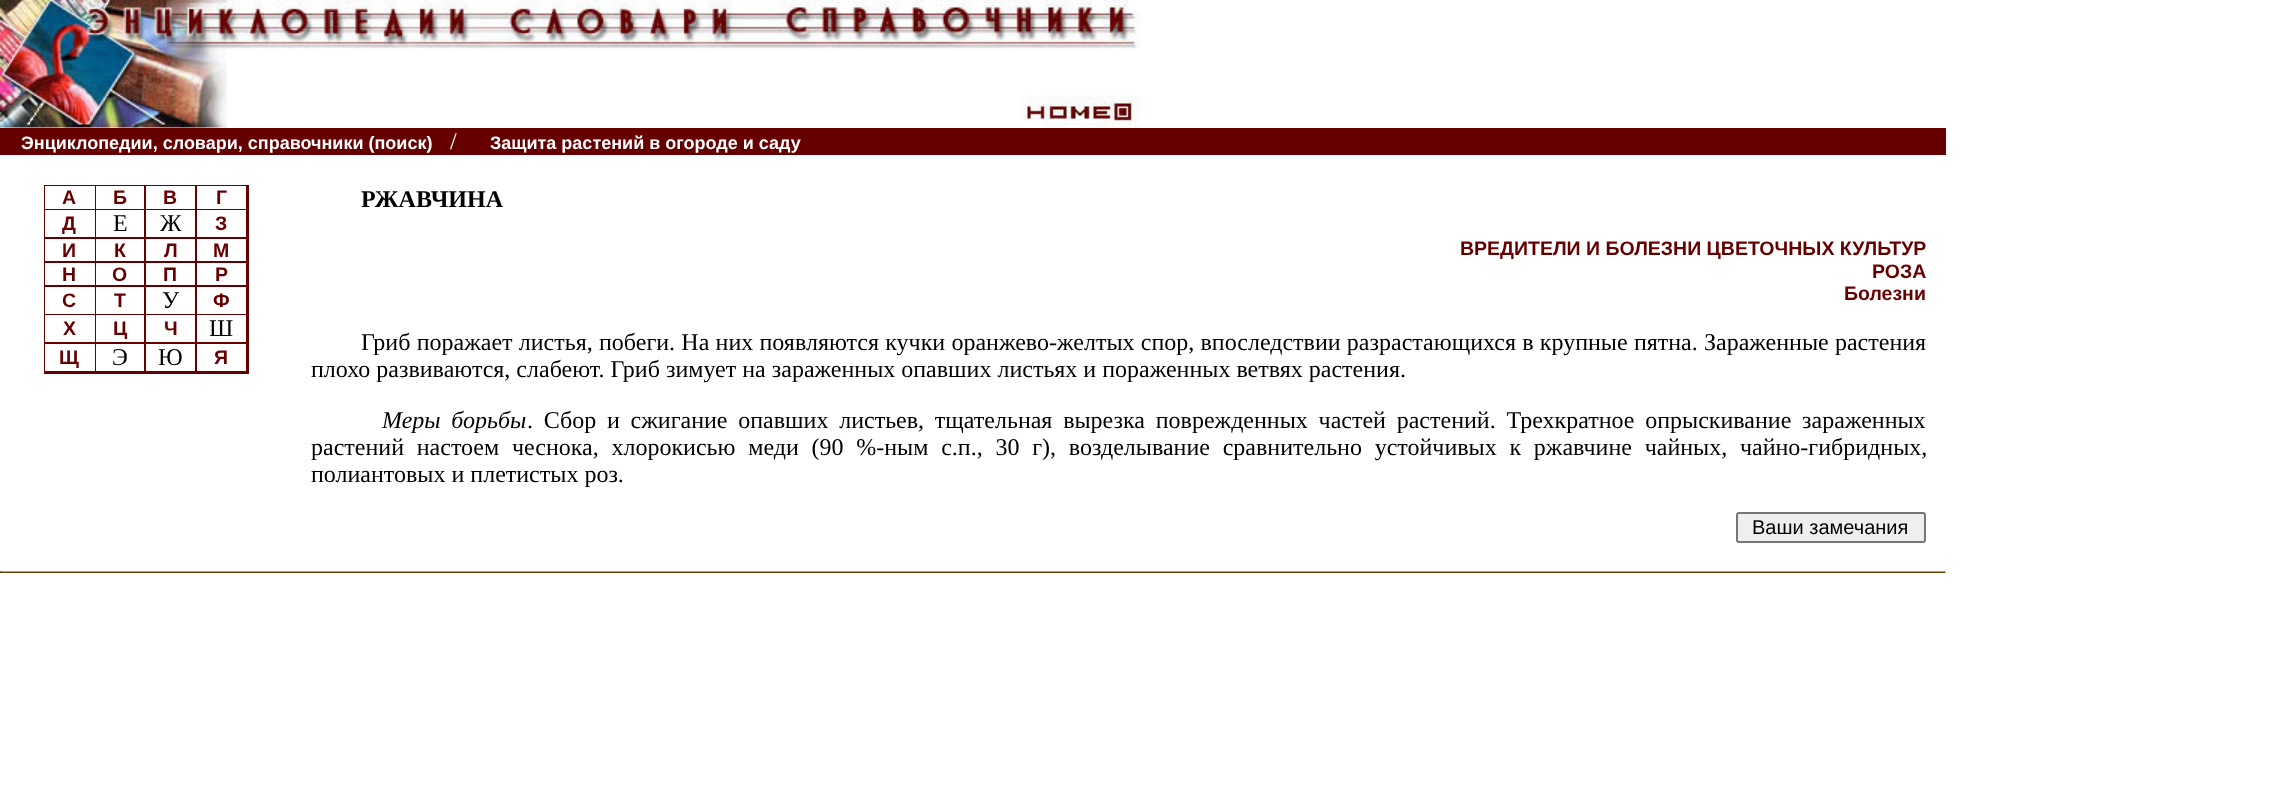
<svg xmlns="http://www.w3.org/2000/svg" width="2289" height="805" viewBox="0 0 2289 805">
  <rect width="100%" height="100%" fill="#ffffff"/>
  <image x="0" y="0" width="1140" height="128" href="img1.png"/>
  <rect x="0" y="128" width="1946" height="27" fill="#660000"/>
  <text x="21" y="149" font-family="Liberation Sans" font-size="18" font-weight="bold" fill="#ffffff">Энциклопедии, словари, справочники (поиск)</text>
  <text x="450" y="149" font-family="Liberation Serif" font-size="24" fill="#ffffff">/</text>
  <text x="490" y="149" font-family="Liberation Sans" font-size="18" font-weight="bold" fill="#ffffff">Защита растений в огороде и саду</text>
  <rect x="44" y="185" width="205" height="189" fill="#660000"/>
  <rect x="45" y="186" width="50" height="23" fill="#ffffff"/>
  <text x="62" y="204" font-family="Liberation Sans" font-size="19.5" font-weight="bold" fill="#660000">А</text>
  <rect x="96" y="186" width="48" height="23" fill="#ffffff"/>
  <text x="113" y="204" font-family="Liberation Sans" font-size="19.5" font-weight="bold" fill="#660000">Б</text>
  <rect x="146" y="186" width="49" height="23" fill="#ffffff"/>
  <text x="163" y="204" font-family="Liberation Sans" font-size="19.5" font-weight="bold" fill="#660000">В</text>
  <rect x="197" y="186" width="49" height="23" fill="#ffffff"/>
  <text x="216" y="204" font-family="Liberation Sans" font-size="19.5" font-weight="bold" fill="#660000">Г</text>
  <rect x="45" y="210" width="50" height="27" fill="#ffffff"/>
  <text x="62" y="230" font-family="Liberation Sans" font-size="19.5" font-weight="bold" fill="#660000">Д</text>
  <rect x="96" y="210" width="48" height="27" fill="#ffffff"/>
  <text x="113" y="231" font-family="Liberation Serif" font-size="24" fill="#000000">Е</text>
  <rect x="146" y="210" width="49" height="27" fill="#ffffff"/>
  <text x="160" y="231" font-family="Liberation Serif" font-size="24" fill="#000000">Ж</text>
  <rect x="197" y="210" width="49" height="27" fill="#ffffff"/>
  <text x="215" y="230" font-family="Liberation Sans" font-size="19.5" font-weight="bold" fill="#660000">З</text>
  <rect x="45" y="239" width="50" height="22" fill="#ffffff"/>
  <text x="62" y="257" font-family="Liberation Sans" font-size="19.5" font-weight="bold" fill="#660000">И</text>
  <rect x="96" y="239" width="48" height="22" fill="#ffffff"/>
  <text x="114" y="257" font-family="Liberation Sans" font-size="19.5" font-weight="bold" fill="#660000">К</text>
  <rect x="146" y="239" width="49" height="22" fill="#ffffff"/>
  <text x="164" y="257" font-family="Liberation Sans" font-size="19.5" font-weight="bold" fill="#660000">Л</text>
  <rect x="197" y="239" width="49" height="22" fill="#ffffff"/>
  <text x="213" y="257" font-family="Liberation Sans" font-size="19.5" font-weight="bold" fill="#660000">М</text>
  <rect x="45" y="263" width="50" height="22" fill="#ffffff"/>
  <text x="62" y="281" font-family="Liberation Sans" font-size="19.5" font-weight="bold" fill="#660000">Н</text>
  <rect x="96" y="263" width="48" height="22" fill="#ffffff"/>
  <text x="112" y="281" font-family="Liberation Sans" font-size="19.5" font-weight="bold" fill="#660000">О</text>
  <rect x="146" y="263" width="49" height="22" fill="#ffffff"/>
  <text x="163" y="281" font-family="Liberation Sans" font-size="19.5" font-weight="bold" fill="#660000">П</text>
  <rect x="197" y="263" width="49" height="22" fill="#ffffff"/>
  <text x="215" y="281" font-family="Liberation Sans" font-size="19.5" font-weight="bold" fill="#660000">Р</text>
  <rect x="45" y="287" width="50" height="27" fill="#ffffff"/>
  <text x="62" y="307" font-family="Liberation Sans" font-size="19.5" font-weight="bold" fill="#660000">С</text>
  <rect x="96" y="287" width="48" height="27" fill="#ffffff"/>
  <text x="114" y="307" font-family="Liberation Sans" font-size="19.5" font-weight="bold" fill="#660000">Т</text>
  <rect x="146" y="287" width="49" height="27" fill="#ffffff"/>
  <text x="162" y="308" font-family="Liberation Serif" font-size="24" fill="#000000">У</text>
  <rect x="197" y="287" width="49" height="27" fill="#ffffff"/>
  <text x="213" y="307" font-family="Liberation Sans" font-size="19.5" font-weight="bold" fill="#660000">Ф</text>
  <rect x="45" y="315" width="50" height="27" fill="#ffffff"/>
  <text x="63" y="335" font-family="Liberation Sans" font-size="19.5" font-weight="bold" fill="#660000">Х</text>
  <rect x="96" y="315" width="48" height="27" fill="#ffffff"/>
  <text x="113" y="335" font-family="Liberation Sans" font-size="19.5" font-weight="bold" fill="#660000">Ц</text>
  <rect x="146" y="315" width="49" height="27" fill="#ffffff"/>
  <text x="164" y="335" font-family="Liberation Sans" font-size="19.5" font-weight="bold" fill="#660000">Ч</text>
  <rect x="197" y="315" width="49" height="27" fill="#ffffff"/>
  <text x="209" y="336" font-family="Liberation Serif" font-size="24" fill="#000000">Ш</text>
  <rect x="45" y="344" width="50" height="27" fill="#ffffff"/>
  <text x="59" y="364" font-family="Liberation Sans" font-size="19.5" font-weight="bold" fill="#660000">Щ</text>
  <rect x="96" y="344" width="48" height="27" fill="#ffffff"/>
  <text x="112" y="365" font-family="Liberation Serif" font-size="24" fill="#000000">Э</text>
  <rect x="146" y="344" width="49" height="27" fill="#ffffff"/>
  <text x="158" y="365" font-family="Liberation Serif" font-size="24" fill="#000000">Ю</text>
  <rect x="197" y="344" width="49" height="27" fill="#ffffff"/>
  <text x="214" y="364" font-family="Liberation Sans" font-size="19.5" font-weight="bold" fill="#660000">Я</text>
  <text x="361" y="207" font-family="Liberation Serif" font-size="24" font-weight="bold" fill="#000000">РЖАВЧИНА</text>
  <text x="1460" y="255" font-family="Liberation Sans" font-size="19.5" font-weight="bold" fill="#660000">ВРЕДИТЕЛИ И БОЛЕЗНИ ЦВЕТОЧНЫХ КУЛЬТУР</text>
  <text x="1872" y="278" font-family="Liberation Sans" font-size="19.5" font-weight="bold" fill="#660000">РОЗА</text>
  <text x="1844" y="300" font-family="Liberation Sans" font-size="19.5" font-weight="bold" fill="#660000">Болезни</text>
  <text x="361" y="350" word-spacing="0.25" font-family="Liberation Serif" font-size="24" fill="#000000">Гриб поражает листья, побеги. На них появляются кучки оранжево-желтых спор, впоследствии разрастающихся в крупные пятна. Зараженные растения</text>
  <text x="311" y="377" font-family="Liberation Serif" font-size="24" fill="#000000">плохо развиваются, слабеют. Гриб зимует на зараженных опавших листьях и пораженных ветвях растения.</text>
  <text x="382" y="428" word-spacing="4.75" font-family="Liberation Serif" font-size="24" font-style="italic" fill="#000000">Меры борьбы</text>
  <text x="527" y="428" word-spacing="4.75" font-family="Liberation Serif" font-size="24" fill="#000000">. Сбор и сжигание опавших листьев, тщательная вырезка поврежденных частей растений. Трехкратное опрыскивание зараженных</text>
  <text x="311" y="455" word-spacing="6.75" font-family="Liberation Serif" font-size="24" fill="#000000">растений настоем чеснока, хлорокисью меди (90 %-ным с.п., 30 г), возделывание сравнительно устойчивых к ржавчине чайных, чайно-гибридных,</text>
  <text x="311" y="482" font-family="Liberation Serif" font-size="24" fill="#000000">полиантовых и плетистых роз.</text>
  <rect x="1737" y="513" width="188" height="29" rx="2" fill="#efefef" stroke="#767676" stroke-width="2"/>
  <text x="1752" y="534" font-family="Liberation Sans" font-size="20" fill="#000000">Ваши замечания</text>
  <image x="0" y="571" width="1946" height="2" href="img2.png"/>
  <image x="0" y="571" width="2" height="1" href="img3.png"/>
</svg>
